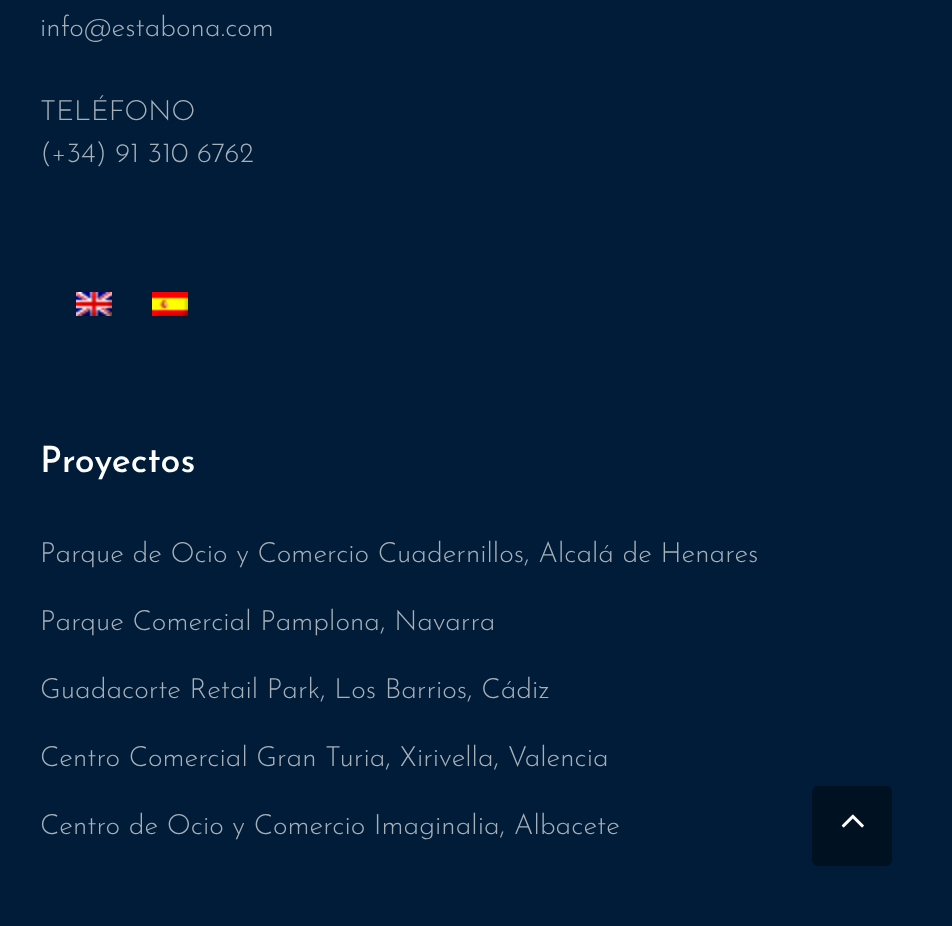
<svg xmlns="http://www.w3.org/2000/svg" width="952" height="926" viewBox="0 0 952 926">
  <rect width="100%" height="100%" fill="#001c38"/>
  <text x="40" y="36" font-family="Josefin Sans" font-size="28" font-weight="300" fill="#a6b0b9">info@estabona.com</text>
  <text x="40" y="120" font-family="Josefin Sans" font-size="28" font-weight="300" fill="#a6b0b9">TELÉFONO</text>
  <text x="40" y="162" font-family="Josefin Sans" font-size="28" font-weight="300" fill="#a6b0b9">(+34) 91 310 6762</text>
  <image x="76" y="292" width="36" height="24" href="img1.png"/>
  <image x="152" y="292" width="36" height="24" href="img2.png"/>
  <text x="40" y="472" font-family="Josefin Sans" font-size="36" font-weight="500" fill="#ffffff">Proyectos</text>
  <text x="40" y="562" font-family="Josefin Sans" font-size="28" font-weight="300" fill="#a6b0b9">Parque de Ocio y Comercio Cuadernillos, Alcalá de Henares</text>
  <text x="40" y="630" font-family="Josefin Sans" font-size="28" font-weight="300" fill="#a6b0b9">Parque Comercial Pamplona, Navarra</text>
  <text x="40" y="698" font-family="Josefin Sans" font-size="28" font-weight="300" fill="#a6b0b9">Guadacorte Retail Park, Los Barrios, Cádiz</text>
  <text x="40" y="766" font-family="Josefin Sans" font-size="28" font-weight="300" fill="#a6b0b9">Centro Comercial Gran Turia, Xirivella, Valencia</text>
  <text x="40" y="834" font-family="Josefin Sans" font-size="28" font-weight="300" fill="#a6b0b9">Centro de Ocio y Comercio Imaginalia, Albacete</text>
  <rect x="812" y="786" width="80" height="80" rx="6" fill="#001122"/>
  <image x="841" y="814" width="23" height="14" href="img3.png"/>
</svg>
